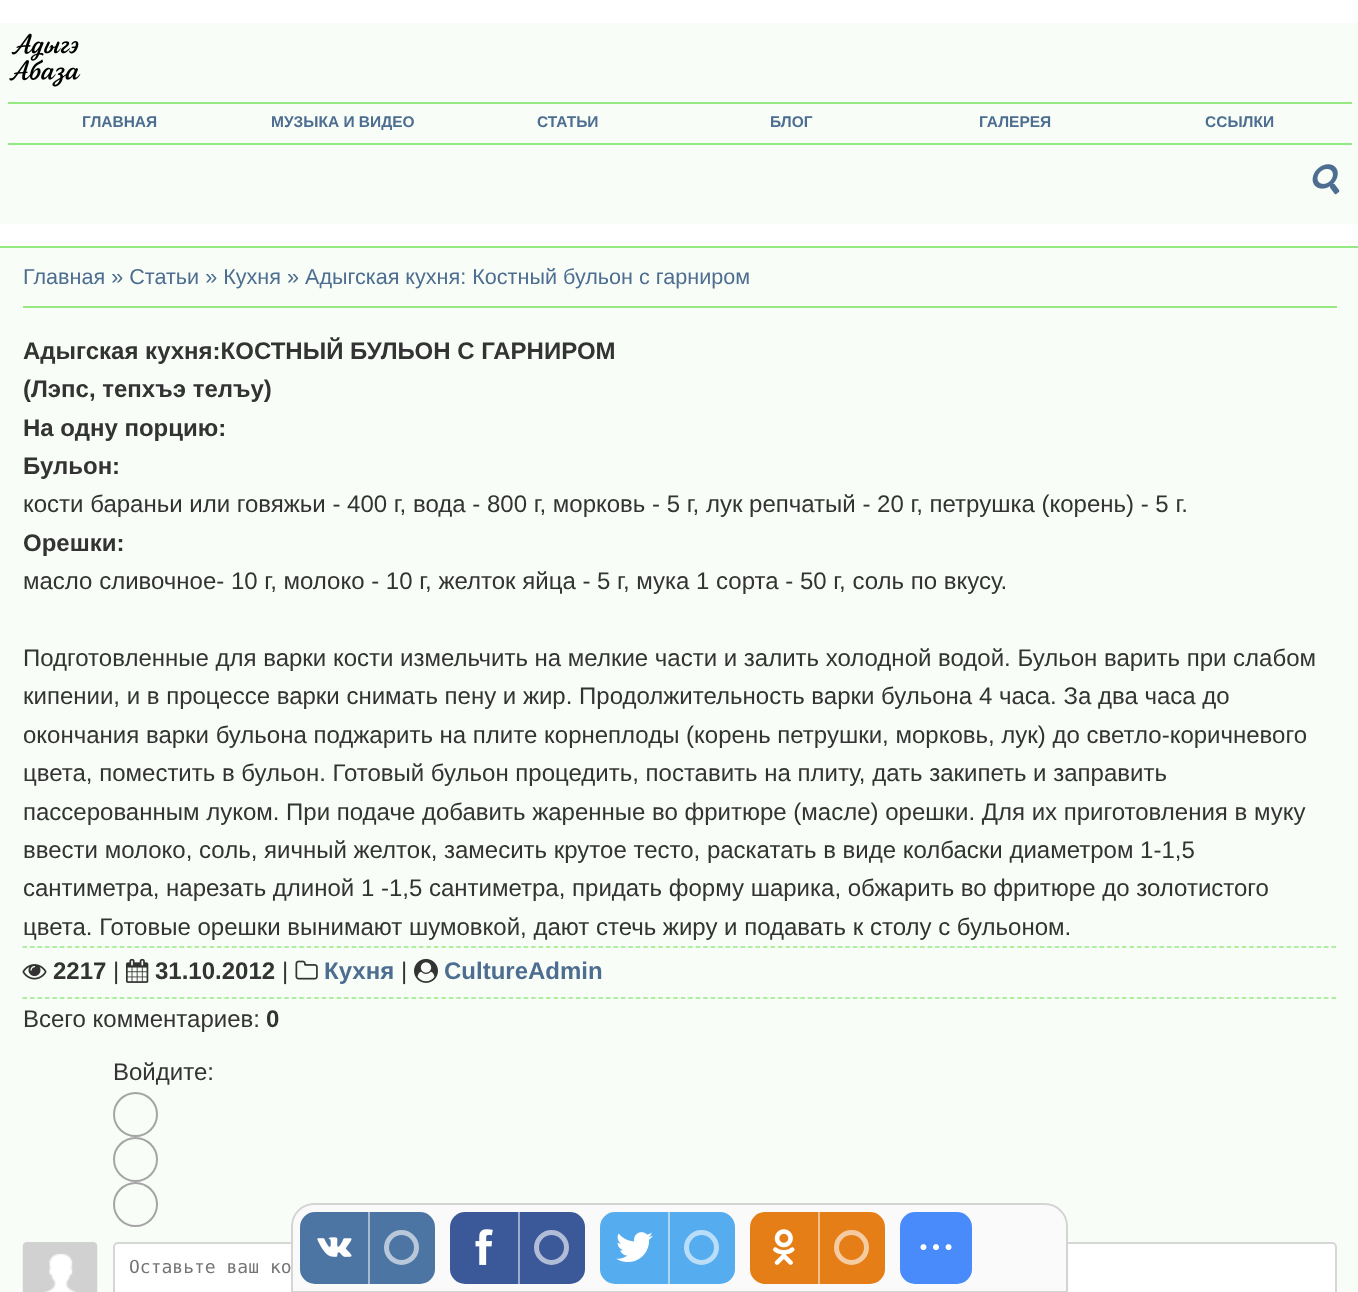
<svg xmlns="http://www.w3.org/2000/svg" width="1358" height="1292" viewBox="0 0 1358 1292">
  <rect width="100%" height="100%" fill="#ffffff"/>
  <rect x="0" y="23" width="1358" height="201" fill="#f8fef7"/>
  <image x="9" y="33" width="72" height="54" href="img1.png"/>
  <rect x="8" y="102" width="1344" height="2" fill="#95e982"/>
  <rect x="8" y="143" width="1344" height="2" fill="#95e982"/>
  <text x="82" y="127" font-family="Liberation Sans" font-size="15.5" font-weight="bold" fill="#4d6d91">ГЛАВНАЯ</text>
  <text x="271" y="127" font-family="Liberation Sans" font-size="15.5" font-weight="bold" fill="#4d6d91">МУЗЫКА И ВИДЕО</text>
  <text x="537" y="127" font-family="Liberation Sans" font-size="15.5" font-weight="bold" fill="#4d6d91">СТАТЬИ</text>
  <text x="770" y="127" font-family="Liberation Sans" font-size="15.5" font-weight="bold" fill="#4d6d91">БЛОГ</text>
  <text x="979" y="127" font-family="Liberation Sans" font-size="15.5" font-weight="bold" fill="#4d6d91">ГАЛЕРЕЯ</text>
  <text x="1205" y="127" font-family="Liberation Sans" font-size="15.5" font-weight="bold" fill="#4d6d91">ССЫЛКИ</text>
  <image x="1312" y="164" width="28" height="31" href="img2.png"/>
  <rect x="0" y="248" width="1358" height="1044" fill="#f8fef7"/>
  <rect x="0" y="246" width="1358" height="2" fill="#95e982"/>
  <rect x="23" y="306" width="1314" height="2" fill="#95e982"/>
  <text x="23" y="284" font-family="Liberation Sans" font-size="21.6" fill="#4d6d91">Главная » Статьи » Кухня » Адыгская кухня: Костный бульон с гарниром</text>
  <text x="23" y="359" font-family="Liberation Sans" font-size="24" font-weight="bold" fill="#333333">Адыгская кухня:КОСТНЫЙ БУЛЬОН С ГАРНИРОМ</text>
  <text x="23" y="397" font-family="Liberation Sans" font-size="24" font-weight="bold" fill="#333333">(Лэпс, тепхъэ телъу)</text>
  <text x="23" y="436" font-family="Liberation Sans" font-size="24" font-weight="bold" fill="#333333">На одну порцию:</text>
  <text x="23" y="474" font-family="Liberation Sans" font-size="24" font-weight="bold" fill="#333333">Бульон:</text>
  <text x="23" y="512" font-family="Liberation Sans" font-size="24" fill="#333333">кости бараньи или говяжьи - 400 г, вода - 800 г, морковь - 5 г, лук репчатый - 20 г, петрушка (корень) - 5 г.</text>
  <text x="23" y="551" font-family="Liberation Sans" font-size="24" font-weight="bold" fill="#333333">Орешки:</text>
  <text x="23" y="589" font-family="Liberation Sans" font-size="24" fill="#333333">масло сливочное- 10 г, молоко - 10 г, желток яйца - 5 г, мука 1 сорта - 50 г, соль по вкусу.</text>
  <text x="23" y="666" font-family="Liberation Sans" font-size="24" fill="#333333">Подготовленные для варки кости измельчить на мелкие части и залить холодной водой. Бульон варить при слабом</text>
  <text x="23" y="704" font-family="Liberation Sans" font-size="24" fill="#333333">кипении, и в процессе варки снимать пену и жир. Продолжительность варки бульона 4 часа. За два часа до</text>
  <text x="23" y="743" font-family="Liberation Sans" font-size="24" fill="#333333">окончания варки бульона поджарить на плите корнеплоды (корень петрушки, морковь, лук) до светло-коричневого</text>
  <text x="23" y="781" font-family="Liberation Sans" font-size="24" fill="#333333">цвета, поместить в бульон. Готовый бульон процедить, поставить на плиту, дать закипеть и заправить</text>
  <text x="23" y="820" font-family="Liberation Sans" font-size="24" fill="#333333">пассерованным луком. При подаче добавить жаренные во фритюре (масле) орешки. Для их приготовления в муку</text>
  <text x="23" y="858" font-family="Liberation Sans" font-size="24" fill="#333333">ввести молоко, соль, яичный желток, замесить крутое тесто, раскатать в виде колбаски диаметром 1-1,5</text>
  <text x="23" y="896" font-family="Liberation Sans" font-size="24" fill="#333333">сантиметра, нарезать длиной 1 -1,5 сантиметра, придать форму шарика, обжарить во фритюре до золотистого</text>
  <text x="23" y="935" font-family="Liberation Sans" font-size="24" fill="#333333">цвета. Готовые орешки вынимают шумовкой, дают стечь жиру и подавать к столу с бульоном.</text>
  <path d="M22.5 947H1336.5" fill="none" stroke="#95e982" stroke-width="1.5" stroke-dasharray="4.5 2.98"/>
  <path d="M22.5 998H1336.5" fill="none" stroke="#95e982" stroke-width="1.5" stroke-dasharray="4.5 2.98"/>
  <image x="22" y="964" width="25" height="16" href="img3.png"/>
  <text x="53" y="979" font-family="Liberation Sans" font-size="24" font-weight="bold" fill="#333333">2217</text>
  <text x="113" y="979" font-family="Liberation Sans" font-size="24" fill="#333333">|</text>
  <image x="126" y="958" width="23" height="25" href="img4.png"/>
  <text x="155" y="979" font-family="Liberation Sans" font-size="24" font-weight="bold" fill="#333333">31.10.2012</text>
  <text x="282" y="979" font-family="Liberation Sans" font-size="24" fill="#333333">|</text>
  <image x="295" y="960" width="23" height="20" href="img5.png"/>
  <text x="324" y="979" font-family="Liberation Sans" font-size="24" font-weight="bold" fill="#4d6d91">Кухня</text>
  <text x="401" y="979" font-family="Liberation Sans" font-size="24" fill="#333333">|</text>
  <image x="414" y="958" width="24" height="25" href="img6.png"/>
  <text x="444" y="979" font-family="Liberation Sans" font-size="24" font-weight="bold" fill="#4d6d91">CultureAdmin</text>
  <text x="23" y="1027" font-family="Liberation Sans" font-size="24" fill="#333333">Всего комментариев:</text>
  <text x="266" y="1027" font-family="Liberation Sans" font-size="24" font-weight="bold" fill="#333333">0</text>
  <text x="113" y="1080" font-family="Liberation Sans" font-size="24" fill="#333333">Войдите:</text>
  <circle cx="135.5" cy="1114.5" r="21.5" fill="none" stroke="#a5a5a5" stroke-width="2"/>
  <circle cx="135.5" cy="1159.5" r="21.5" fill="none" stroke="#a5a5a5" stroke-width="2"/>
  <circle cx="135.5" cy="1204.5" r="21.5" fill="none" stroke="#a5a5a5" stroke-width="2"/>
  <image x="22" y="1242" width="76" height="50" href="img7.png"/>
  <rect x="114" y="1243" width="1222" height="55" rx="4" fill="#ffffff" stroke="#d6d6d6" stroke-width="2"/>
  <text x="129" y="1273" font-family="DejaVu Sans Mono" font-size="18" fill="#757575">Оставьте ваш ко</text>
  <path d="M314 1204H1045C1057 1204 1067 1214 1067 1226V1292H292V1226C292 1214 302 1204 314 1204Z" fill="#fafafa" stroke="#d4d4d4" stroke-width="2"/>
  <rect x="300" y="1212" width="135" height="72" rx="15" fill="#4d75a3"/>
  <image x="317" y="1237" width="35" height="20" href="img8.png"/>
  <rect x="368" y="1212" width="2" height="72" fill="#a6bad1"/>
  <circle cx="401.5" cy="1247.5" r="15" fill="none" stroke="#b8c8da" stroke-width="5"/>
  <rect x="450" y="1212" width="135" height="72" rx="15" fill="#3b5998"/>
  <image x="475" y="1229" width="18" height="36" href="img9.png"/>
  <rect x="518" y="1212" width="2" height="72" fill="#9daccc"/>
  <circle cx="551.5" cy="1247.5" r="15" fill="none" stroke="#b1bdd6" stroke-width="5"/>
  <rect x="600" y="1212" width="135" height="72" rx="15" fill="#55acee"/>
  <image x="616" y="1232" width="37" height="30" href="img10.png"/>
  <rect x="668" y="1212" width="2" height="72" fill="#aad6f7"/>
  <circle cx="701.5" cy="1247.5" r="15" fill="none" stroke="#bbdef8" stroke-width="5"/>
  <rect x="750" y="1212" width="135" height="72" rx="15" fill="#e67e17"/>
  <image x="773" y="1229" width="22" height="36" href="img11.png"/>
  <rect x="818" y="1212" width="2" height="72" fill="#f3bf8b"/>
  <circle cx="851.5" cy="1247.5" r="15" fill="none" stroke="#f5cba2" stroke-width="5"/>
  <rect x="900" y="1212" width="72" height="72" rx="15" fill="#498bfa"/>
  <image x="920" y="1244" width="32" height="7" href="img12.png"/>
</svg>
